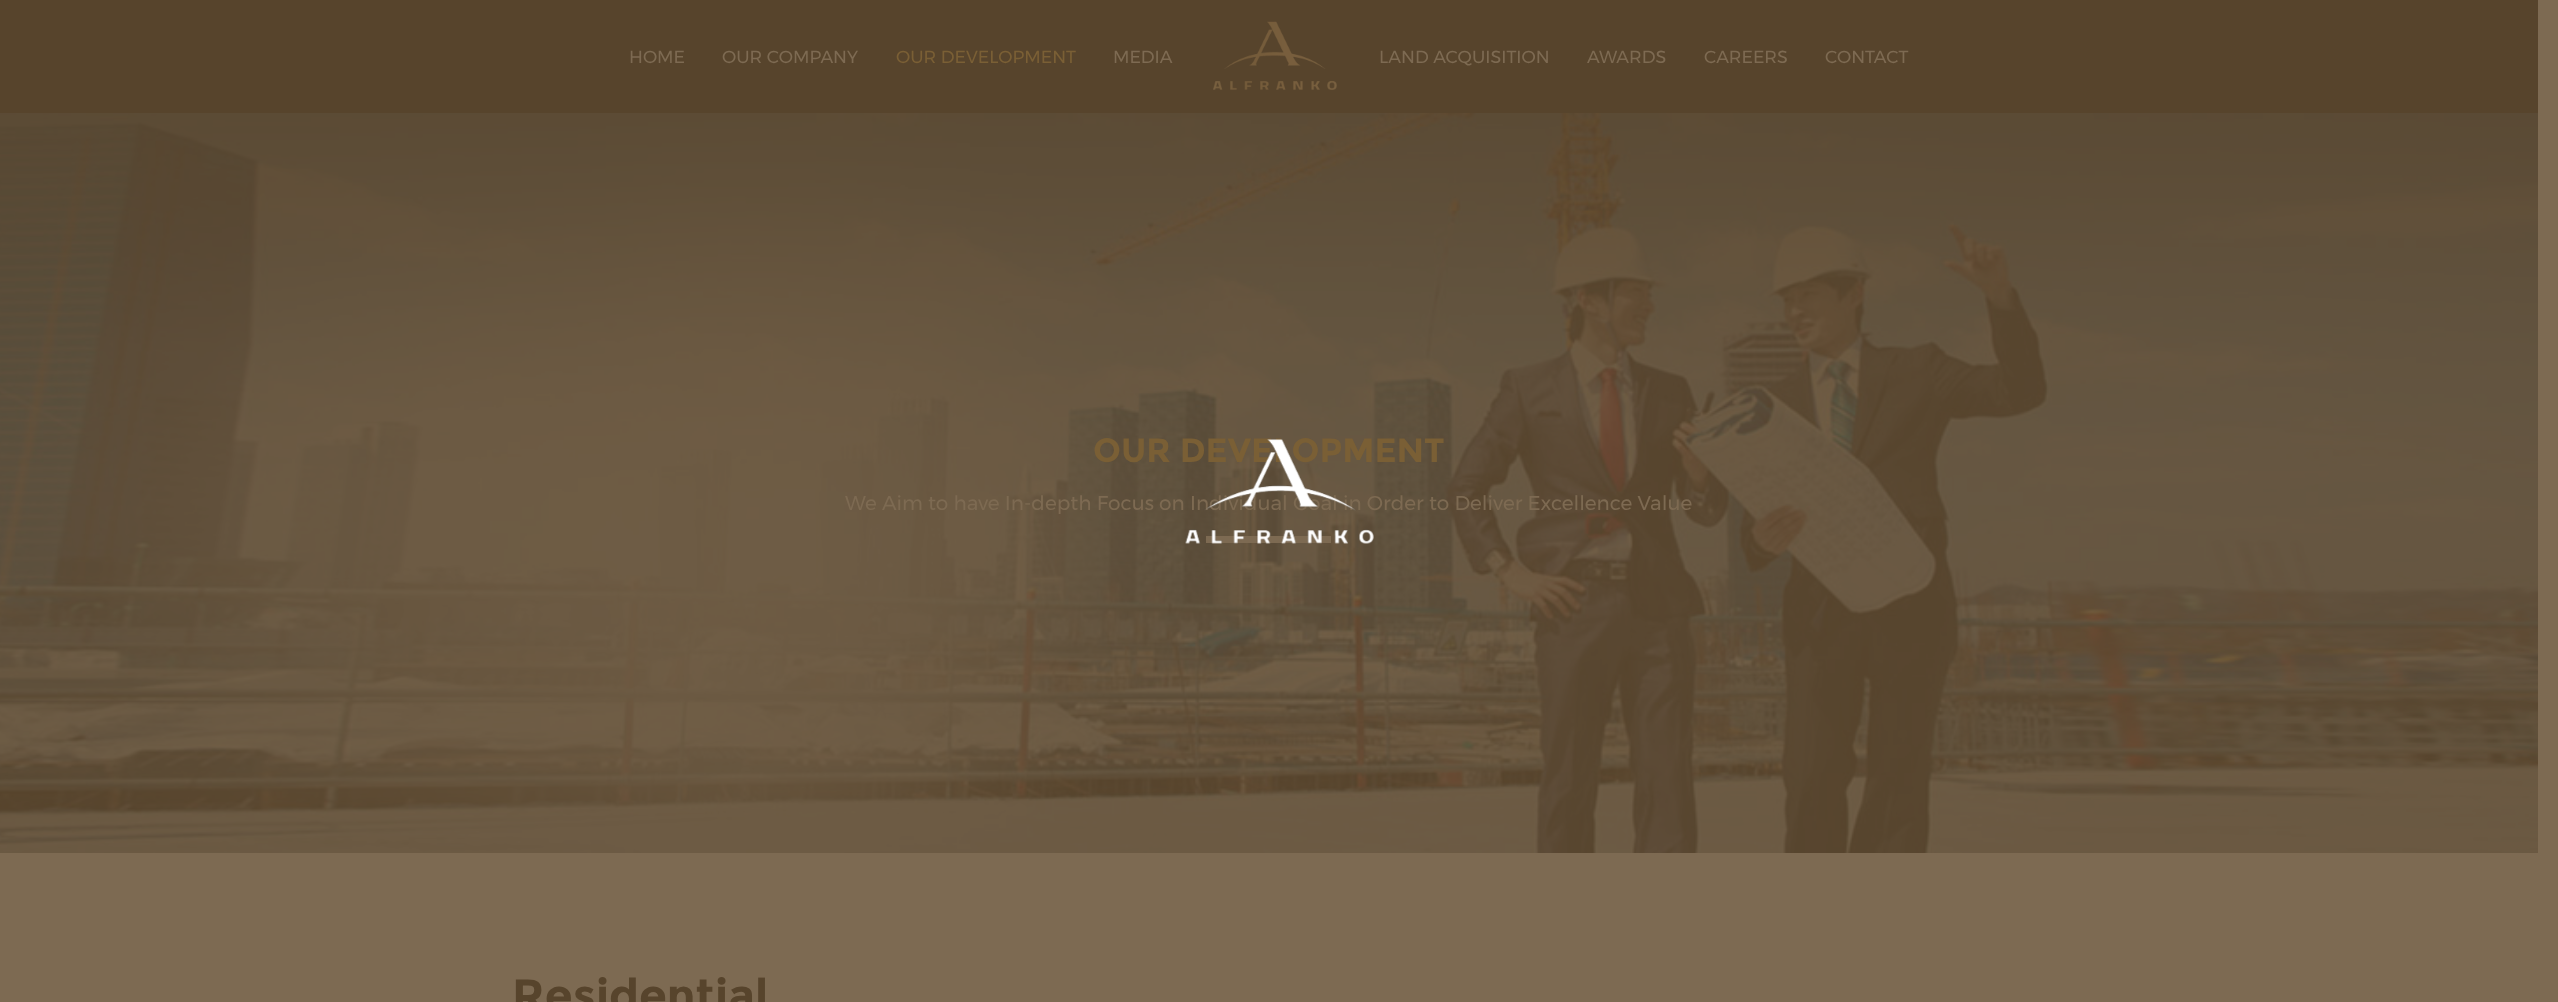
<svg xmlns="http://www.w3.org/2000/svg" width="2558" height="1002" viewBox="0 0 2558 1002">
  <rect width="100%" height="100%" fill="#7d6a52"/>
  <rect x="0" y="0" width="2538" height="113" fill="#57442c"/>
  <text x="629" y="63" font-family="Montserrat" font-size="17.5" fill="#7d6a52">HOME</text>
  <text x="722" y="63" font-family="Montserrat" font-size="17.5" fill="#7d6a52">OUR COMPANY</text>
  <text x="896" y="63" font-family="Montserrat" font-size="17.5" fill="#7a5f35">OUR DEVELOPMENT</text>
  <text x="1113" y="63" font-family="Montserrat" font-size="17.5" fill="#7d6a52">MEDIA</text>
  <image x="1213" y="21" width="124" height="69" href="img1.png"/>
  <text x="1379" y="63" font-family="Montserrat" font-size="17.5" fill="#7d6a52">LAND ACQUISITION</text>
  <text x="1587" y="63" font-family="Montserrat" font-size="17.5" fill="#7d6a52">AWARDS</text>
  <text x="1704" y="63" font-family="Montserrat" font-size="17.5" fill="#7d6a52">CAREERS</text>
  <text x="1825" y="63" font-family="Montserrat" font-size="17.5" fill="#7d6a52">CONTACT</text>
  <image x="0" y="113" width="2538" height="740" href="img2.png"/>
  <text x="1093" y="462" font-family="Montserrat" font-size="33.75" font-weight="bold" fill="#7a5f35">OUR DEVELOPMENT</text>
  <text x="845" y="510" font-family="Montserrat" font-size="20" fill="#7d6a52">We Aim to have In-depth Focus on Individual Goal in Order to Deliver Excellence Value</text>
  <rect x="1206" y="536" width="125" height="7" fill="#7d6a52"/>
  <image x="1185" y="439" width="189" height="105" href="img3.png"/>
  <text x="512" y="1011" font-family="Montserrat" font-size="45" font-weight="bold" fill="#57442c">Residential</text>
</svg>
